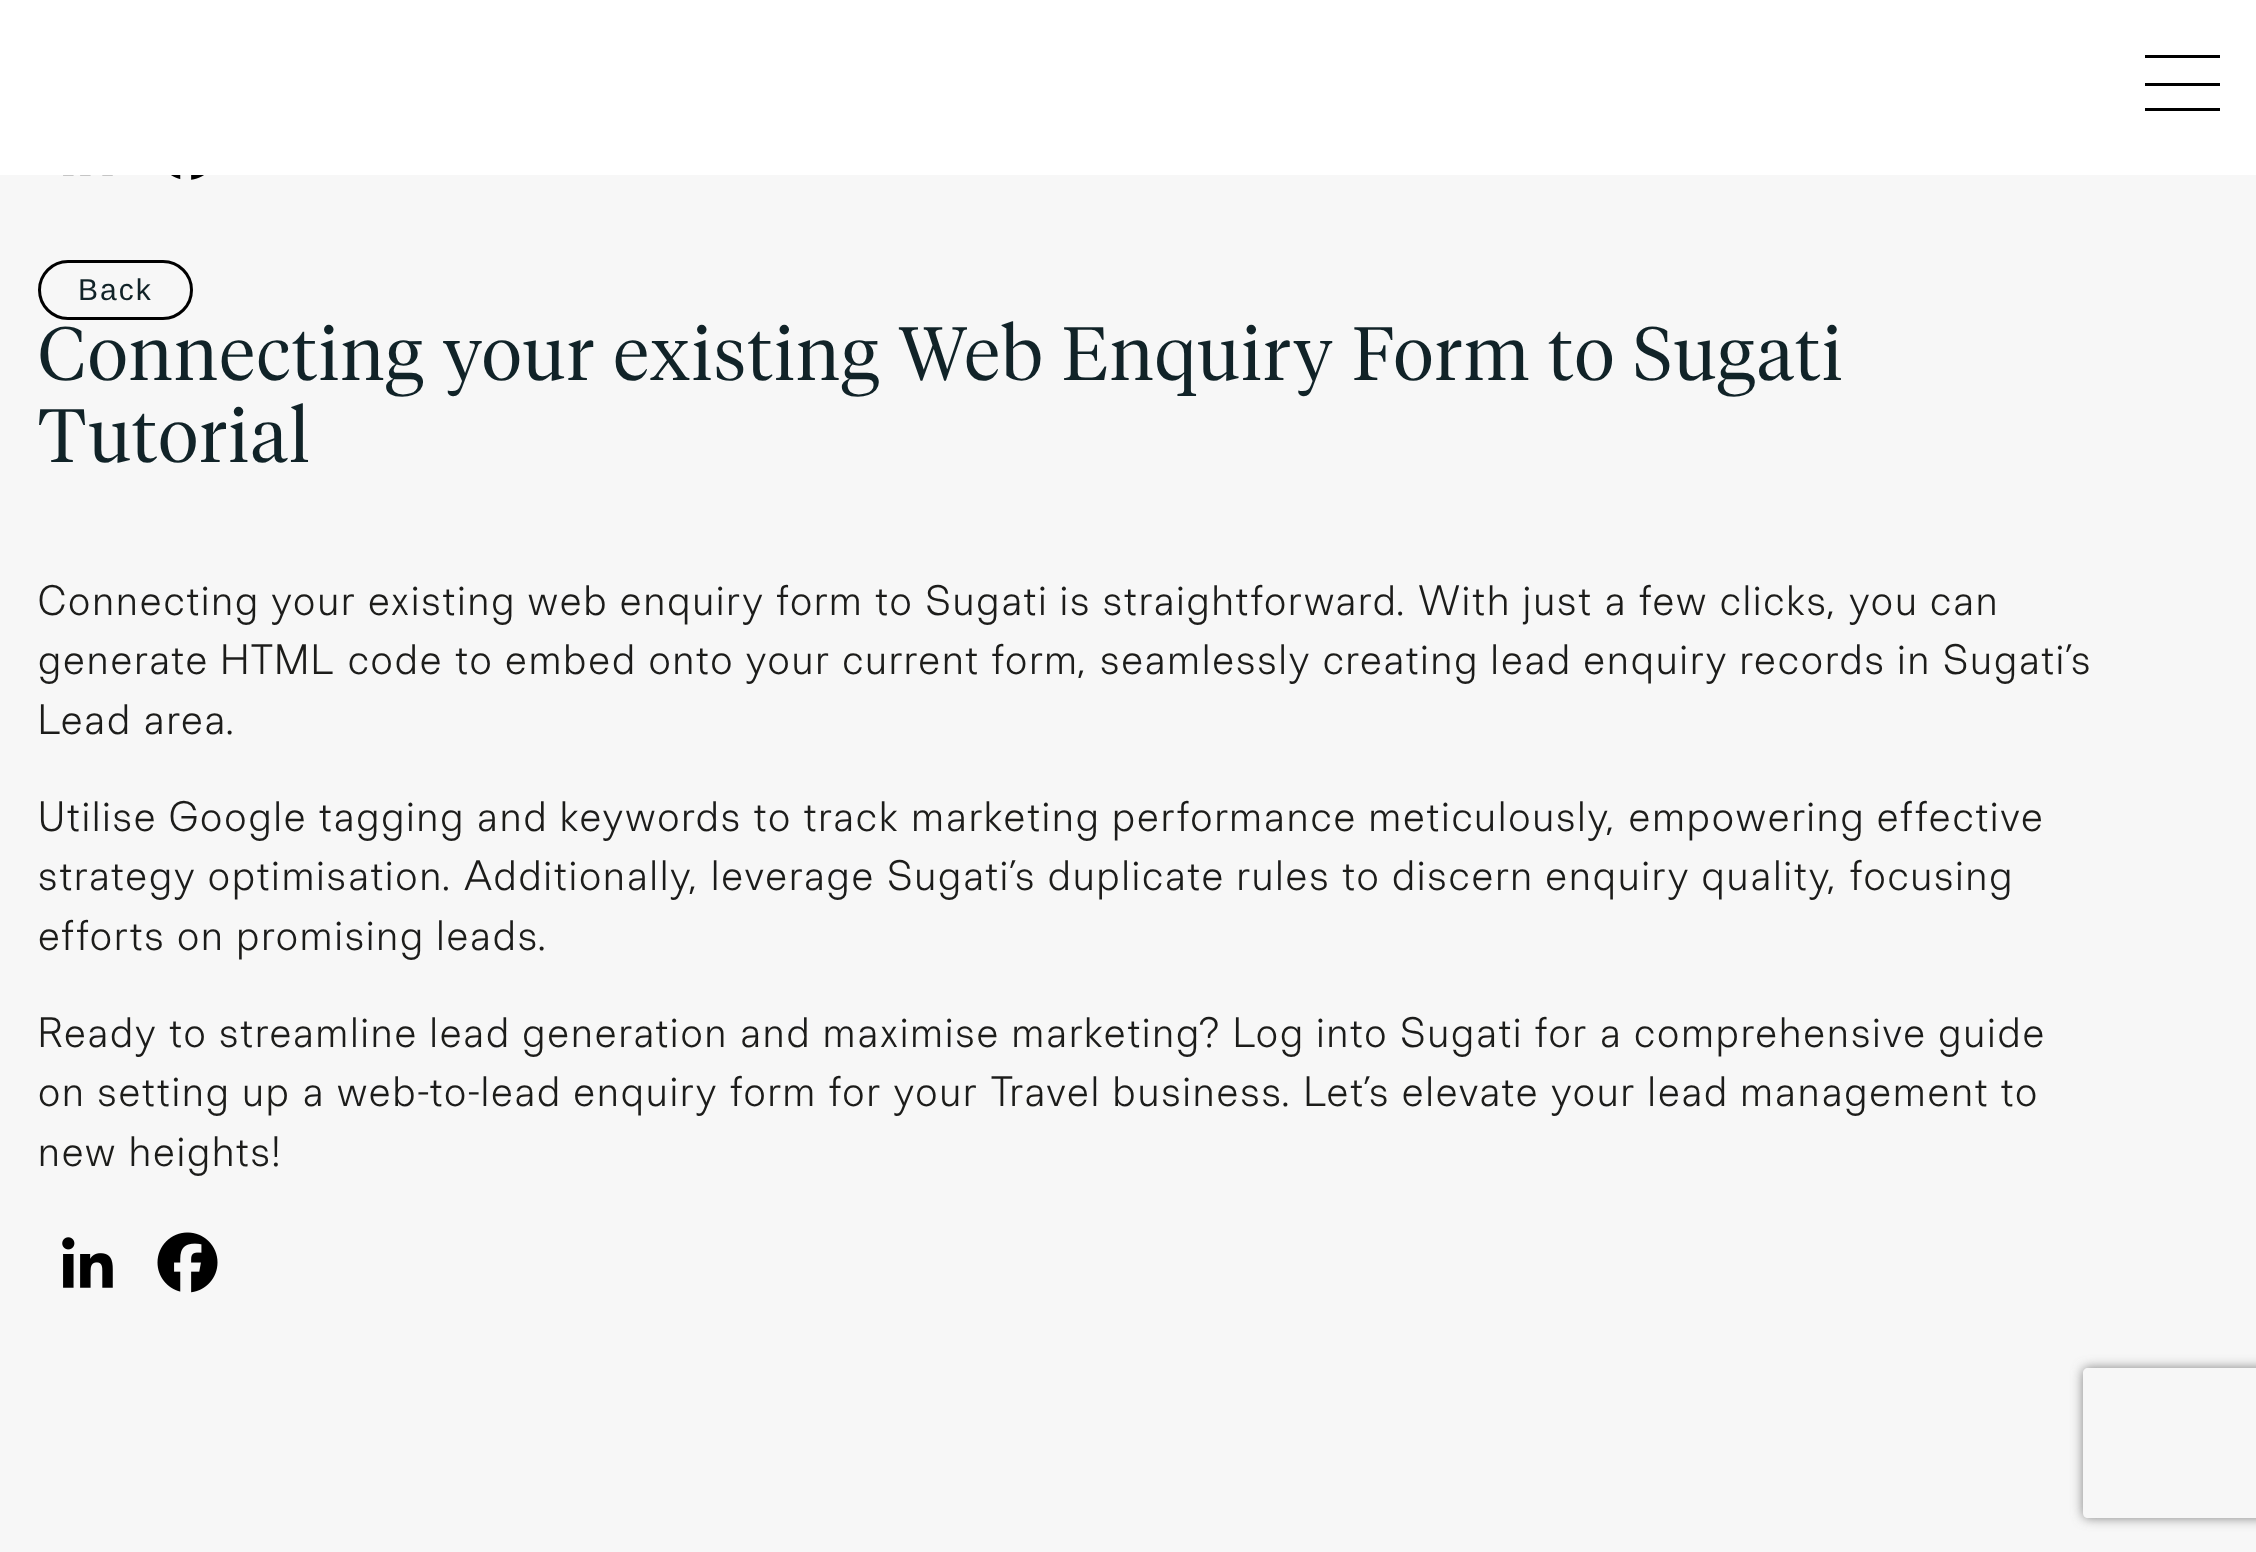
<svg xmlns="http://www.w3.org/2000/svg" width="2256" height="1552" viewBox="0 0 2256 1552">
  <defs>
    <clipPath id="clip1"><path d="M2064 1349H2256V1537H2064ZM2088 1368H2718C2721 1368 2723 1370 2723 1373V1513C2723 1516 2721 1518 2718 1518H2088C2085 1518 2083 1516 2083 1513V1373C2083 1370 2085 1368 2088 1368Z" clip-rule="evenodd"/></clipPath>
    <filter id="blur1" x="-50%" y="-200%" width="200%" height="500%"><feGaussianBlur stdDeviation="6"/></filter>
  </defs>
  <rect width="100%" height="100%" fill="#f7f7f7"/>
  <rect x="0" y="0" width="2256" height="175" fill="#ffffff"/>
  <rect x="2145" y="83" width="75" height="3" fill="#000000"/>
  <rect x="2145" y="55" width="75" height="3" fill="#000000"/>
  <rect x="2145" y="108" width="75" height="3" fill="#000000"/>
  <image x="63" y="175" width="50" height="1" href="img1.png"/>
  <image x="171" y="175" width="33" height="5" href="img2.png"/>
  <rect x="39.5" y="261.5" width="152" height="57" rx="28.5" fill="none" stroke="#000000" stroke-width="3"/>
  <text x="78" y="300" font-family="Liberation Sans" font-size="30" letter-spacing="2" fill="#112328">Back</text>
  <text x="38" y="380" font-family="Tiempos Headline" font-size="75" font-weight="300" letter-spacing="2" fill="#112328">Connecting your existing Web Enquiry Form to Sugati</text>
  <text x="38" y="462" font-family="Tiempos Headline" font-size="75" font-weight="300" letter-spacing="2" fill="#112328">Tutorial</text>
  <text x="38" y="615" font-family="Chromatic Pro" font-size="42.5" font-weight="200" letter-spacing="2" fill="#1c1c1a">Connecting your existing web enquiry form to Sugati is straightforward. With just a few clicks, you can</text>
  <text x="38" y="674" font-family="Chromatic Pro" font-size="42.5" font-weight="200" letter-spacing="2" fill="#1c1c1a">generate HTML code to embed onto your current form, seamlessly creating lead enquiry records in Sugati’s</text>
  <text x="38" y="734" font-family="Chromatic Pro" font-size="42.5" font-weight="200" letter-spacing="2" fill="#1c1c1a">Lead area.</text>
  <text x="38" y="831" font-family="Chromatic Pro" font-size="42.5" font-weight="200" letter-spacing="2" fill="#1c1c1a">Utilise Google tagging and keywords to track marketing performance meticulously, empowering effective</text>
  <text x="38" y="890" font-family="Chromatic Pro" font-size="42.5" font-weight="200" letter-spacing="2" fill="#1c1c1a">strategy optimisation. Additionally, leverage Sugati’s duplicate rules to discern enquiry quality, focusing</text>
  <text x="38" y="950" font-family="Chromatic Pro" font-size="42.5" font-weight="200" letter-spacing="2" fill="#1c1c1a">efforts on promising leads.</text>
  <text x="38" y="1047" font-family="Chromatic Pro" font-size="42.5" font-weight="200" letter-spacing="2" fill="#1c1c1a">Ready to streamline lead generation and maximise marketing? Log into Sugati for a comprehensive guide</text>
  <text x="38" y="1106" font-family="Chromatic Pro" font-size="42.5" font-weight="200" letter-spacing="2" fill="#1c1c1a">on setting up a web-to-lead enquiry form for your Travel business. Let’s elevate your lead management to</text>
  <text x="38" y="1166" font-family="Chromatic Pro" font-size="42.5" font-weight="200" letter-spacing="2" fill="#1c1c1a">new heights!</text>
  <image x="62" y="1237" width="51" height="51" href="img3.png"/>
  <image x="157" y="1232" width="61" height="61" href="img4.png"/>
  <g clip-path="url(#clip1)">
    <rect x="2083" y="1368" width="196" height="150" rx="5" fill="#808080" filter="url(#blur1)"/>
  </g>
</svg>
